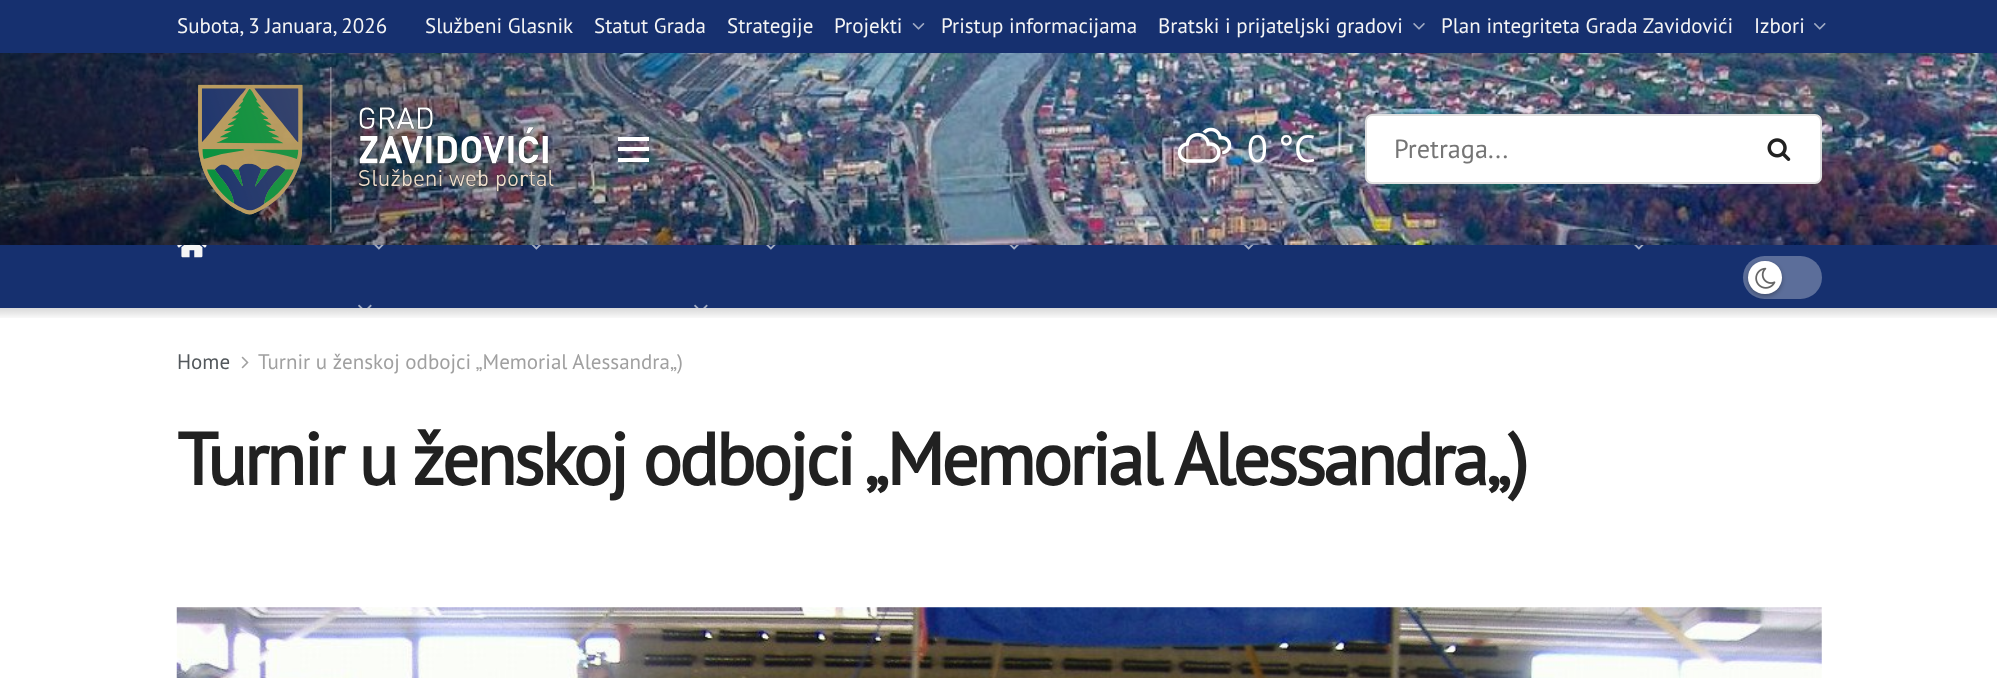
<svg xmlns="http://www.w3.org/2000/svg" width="1997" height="678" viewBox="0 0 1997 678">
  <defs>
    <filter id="blur1" x="-50%" y="-200%" width="200%" height="500%"><feGaussianBlur stdDeviation="2.5"/></filter>
    <linearGradient id="g1" gradientUnits="userSpaceOnUse" x1="999" y1="308" x2="999" y2="320"><stop offset="0" stop-color="#000000" stop-opacity="0.15"/><stop offset="1" stop-color="#000000" stop-opacity="0"/></linearGradient>
  </defs>
  <rect width="100%" height="100%" fill="#ffffff"/>
  <rect x="0" y="0" width="1997" height="53" fill="#16306f"/>
  <text x="177" y="33" font-family="PT Sans" font-size="21" fill="#f5f5f5">Subota, 3 Januara, 2026</text>
  <text x="425" y="33" font-family="PT Sans" font-size="21" fill="#f5f5f5">Službeni Glasnik</text>
  <text x="594" y="33" font-family="PT Sans" font-size="21" fill="#f5f5f5">Statut Grada</text>
  <text x="727" y="33" font-family="PT Sans" font-size="21" fill="#f5f5f5">Strategije</text>
  <text x="834" y="33" font-family="PT Sans" font-size="21" fill="#f5f5f5">Projekti</text>
  <image x="912" y="23" width="13" height="7" href="img1.png"/>
  <text x="941" y="33" font-family="PT Sans" font-size="21" fill="#f5f5f5">Pristup informacijama</text>
  <text x="1158" y="33" font-family="PT Sans" font-size="21" fill="#f5f5f5">Bratski i prijateljski gradovi</text>
  <image x="1413" y="23" width="12" height="7" href="img2.png"/>
  <text x="1441" y="33" font-family="PT Sans" font-size="21" fill="#f5f5f5">Plan integriteta Grada Zavidovići</text>
  <text x="1754" y="33" font-family="PT Sans" font-size="21" fill="#f5f5f5">Izbori</text>
  <image x="1814" y="23" width="12" height="7" href="img3.png"/>
  <image x="0" y="53" width="1997" height="192" href="img4.png"/>
  <image x="198" y="67" width="356" height="166" href="img5.png"/>
  <rect x="618" y="137" width="31" height="4" fill="#ffffff"/>
  <rect x="618" y="147" width="31" height="4" fill="#ffffff"/>
  <rect x="618" y="158" width="31" height="4" fill="#ffffff"/>
  <image x="1177" y="127" width="55" height="36" href="img6.png"/>
  <text x="1247" y="162" font-family="PT Sans" font-size="38" fill="#ffffff">0 °C</text>
  <rect x="1366" y="115" width="455" height="68" rx="6" fill="#ffffff" stroke="#e0e0e0" stroke-width="2"/>
  <text x="1394" y="158" font-family="PT Sans" font-size="26.25" fill="#757575">Pretraga...</text>
  <image x="1767" y="138" width="24" height="23" href="img7.png"/>
  <rect x="0" y="245" width="1997" height="63" fill="#16306f"/>
  <image x="177" y="245" width="30" height="13" href="img8.png"/>
  <image x="374" y="245" width="10" height="5" href="img9.png"/>
  <image x="531" y="245" width="10" height="5" href="img10.png"/>
  <image x="766" y="245" width="10" height="5" href="img9.png"/>
  <image x="1009" y="245" width="10" height="5" href="img11.png"/>
  <image x="1244" y="245" width="10" height="5" href="img12.png"/>
  <image x="1634" y="245" width="10" height="5" href="img9.png"/>
  <image x="358" y="304" width="14" height="4" href="img13.png"/>
  <image x="694" y="304" width="14" height="4" href="img13.png"/>
  <rect x="1743" y="256" width="79" height="43" rx="21.5" fill="#5c6e9a"/>
  <rect x="1748" y="263" width="34" height="33" rx="16.5" fill="#000000" fill-opacity="0.3" filter="url(#blur1)"/>
  <rect x="1748" y="261" width="34" height="33" rx="16.5" fill="#ffffff"/>
  <image x="1755" y="267" width="21" height="22" href="img14.png"/>
  <rect x="0" y="308" width="1997" height="10" fill="url(#g1)"/>
  <text x="177" y="369" font-family="PT Sans" font-size="21" fill="#53585c">Home</text>
  <image x="241" y="356" width="8" height="13" href="img15.png"/>
  <text x="258" y="369" font-family="PT Sans" font-size="21" fill="#a0a0a0">Turnir u ženskoj odbojci „Memorial Alessandra„)</text>
  <text x="177" y="485" font-family="PT Sans" font-size="73.5" font-weight="bold" letter-spacing="-2.95" fill="#212121">Turnir u ženskoj odbojci „Memorial Alessandra„)</text>
  <image x="176" y="607" width="1646" height="71" href="img16.png"/>
</svg>
